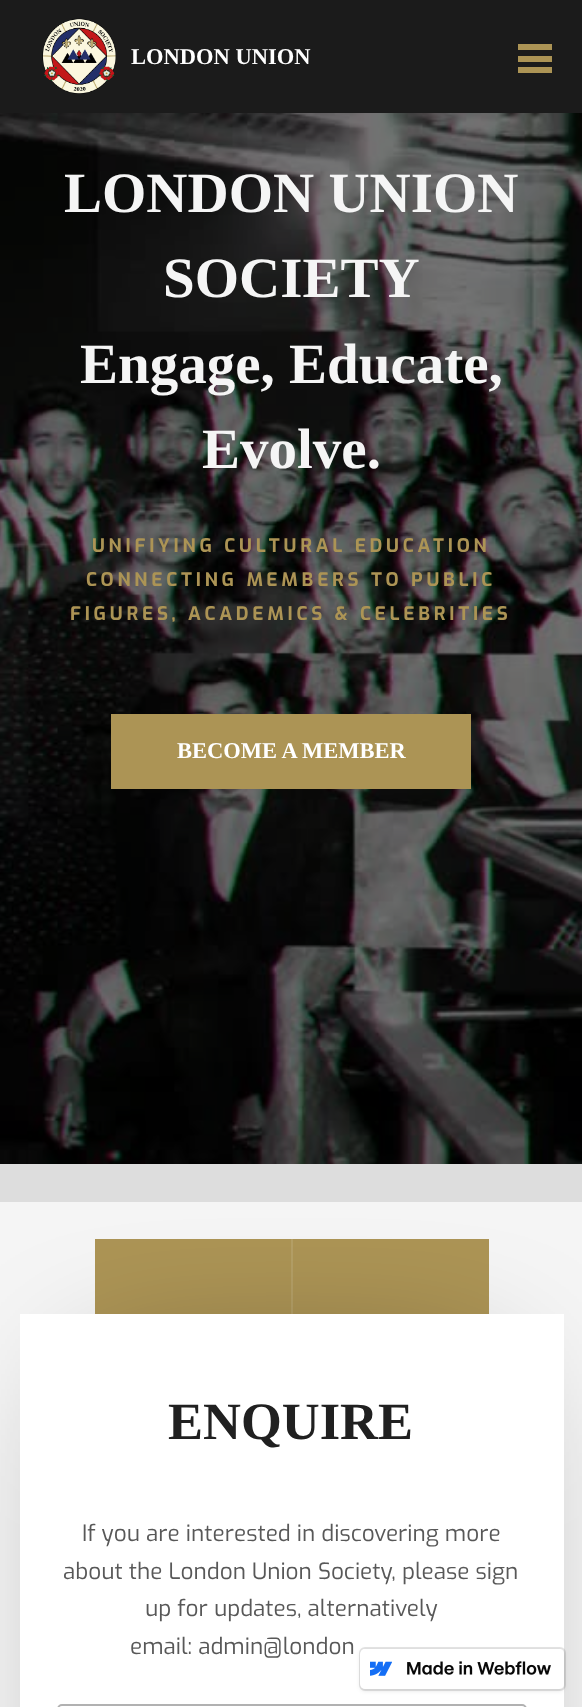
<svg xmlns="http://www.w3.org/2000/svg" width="582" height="1707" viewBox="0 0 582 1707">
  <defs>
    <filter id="blur1" x="-50%" y="-200%" width="200%" height="500%"><feGaussianBlur stdDeviation="75"/></filter>
    <filter id="blur2" x="-50%" y="-200%" width="200%" height="500%"><feGaussianBlur stdDeviation="2"/></filter>
  </defs>
  <rect width="100%" height="100%" fill="#f5f5f5"/>
  <rect x="0" y="1164" width="582" height="38" fill="#dddddd"/>
  <rect x="0" y="0" width="582" height="113" fill="#1b1b1b"/>
  <image x="42" y="18" width="74" height="76" href="img1.png"/>
  <text x="131" y="64" font-family="Liberation Serif" font-size="22.5" font-weight="bold" fill="#ffffff">LONDON UNION</text>
  <rect x="518" y="44" width="34" height="6" fill="#ac9455"/>
  <rect x="518" y="56" width="34" height="6" fill="#ac9455"/>
  <rect x="518" y="67" width="34" height="6" fill="#ac9455"/>
  <image x="0" y="113" width="582" height="1051" href="img2.png"/>
  <text x="64" y="212" font-family="Liberation Serif" font-size="57" font-weight="bold" fill="#f5f5f5">LONDON UNION</text>
  <text x="163" y="297" font-family="Liberation Serif" font-size="57" font-weight="bold" fill="#f5f5f5">SOCIETY</text>
  <text x="80" y="383" font-family="Liberation Serif" font-size="57" font-weight="bold" fill="#f5f5f5">Engage, Educate,</text>
  <text x="202" y="468" font-family="Liberation Serif" font-size="57" font-weight="bold" fill="#f5f5f5">Evolve.</text>
  <text x="92" y="552" font-family="Exo" font-size="18.75" font-weight="bold" letter-spacing="3.75" fill="#ac9455">UNIFIYING CULTURAL EDUCATION</text>
  <text x="86" y="586" font-family="Exo" font-size="18.75" font-weight="bold" letter-spacing="3.75" fill="#ac9455">CONNECTING MEMBERS TO PUBLIC</text>
  <text x="70" y="620" font-family="Exo" font-size="18.75" font-weight="bold" letter-spacing="3.75" fill="#ac9455">FIGURES, ACADEMICS &amp; CELEBRITIES</text>
  <rect x="111" y="714" width="360" height="75" fill="#ac9455"/>
  <text x="177" y="758" font-family="Liberation Serif" font-size="22.5" font-weight="bold" fill="#ffffff">BECOME A MEMBER</text>
  <rect x="95" y="1239" width="394" height="75" fill="#ac9455"/>
  <rect x="291" y="1239" width="2" height="75" fill="#b49f66"/>
  <rect x="95" y="1389" width="394" height="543" fill="#000000" fill-opacity="0.5" filter="url(#blur1)"/>
  <rect x="20" y="1314" width="544" height="393" fill="#ffffff"/>
  <text x="168" y="1439" font-family="Liberation Serif" font-size="52.5" font-weight="bold" fill="#202020">ENQUIRE</text>
  <text x="82" y="1541" font-family="Exo" font-size="22.5" fill="#585858">If you are interested in discovering more</text>
  <text x="63" y="1579" font-family="Exo" font-size="22.5" fill="#585858">about the London Union Society, please sign</text>
  <text x="145" y="1616" font-family="Exo" font-size="22.5" fill="#585858">up for updates, alternatively</text>
  <text x="130" y="1654" font-family="Exo" font-size="22.5" fill="#585858">email: admin@london</text>
  <rect x="58" y="1705" width="468" height="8" rx="4" fill="none" stroke="#b1b1b1" stroke-width="2"/>
  <rect x="360" y="1650" width="204" height="41" rx="5" fill="#000000" fill-opacity="0.1" filter="url(#blur2)"/>
  <rect x="360" y="1648" width="205" height="42" rx="5" fill="none" stroke="#000000" stroke-opacity="0.1" stroke-width="2"/>
  <rect x="360" y="1649" width="204" height="40" rx="5" fill="#ffffff"/>
  <image x="370" y="1661" width="22" height="15" href="img3.png"/>
  <image x="407" y="1661" width="144" height="14" href="img4.png"/>
</svg>
